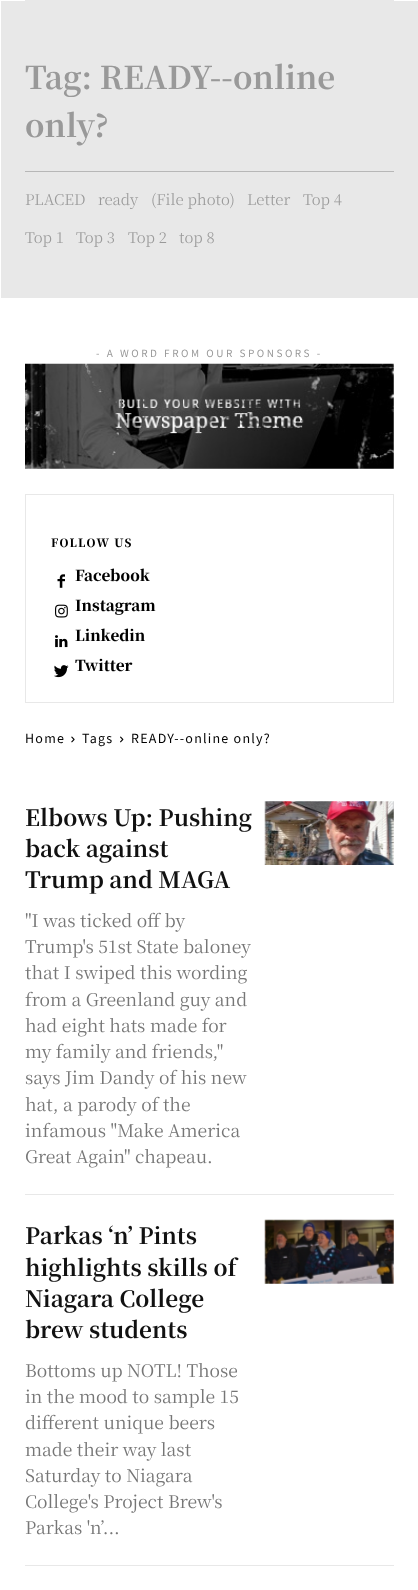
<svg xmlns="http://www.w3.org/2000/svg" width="418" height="1590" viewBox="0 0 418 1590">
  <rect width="100%" height="100%" fill="#ffffff"/>
  <rect x="25" y="0" width="369" height="1" fill="#e8e8e8"/>
  <rect x="1" y="1" width="417" height="297" fill="#e8e8e8"/>
  <text x="25" y="89" font-family="Noto Serif JP" font-size="31.25" font-weight="bold" fill="#999999">Tag: READY--online</text>
  <text x="25" y="137" font-family="Noto Serif JP" font-size="31.25" font-weight="bold" fill="#999999">only?</text>
  <rect x="25" y="171" width="369" height="1" fill="#b7b7b7"/>
  <text x="25" y="205" font-family="Noto Serif JP" font-size="15" font-weight="300" fill="#999999">PLACED</text>
  <text x="98" y="205" font-family="Noto Serif JP" font-size="15" font-weight="300" fill="#999999">ready</text>
  <text x="151" y="205" font-family="Noto Serif JP" font-size="15" font-weight="300" fill="#999999">(File photo)</text>
  <text x="247" y="205" font-family="Noto Serif JP" font-size="15" font-weight="300" fill="#999999">Letter</text>
  <text x="303" y="205" font-family="Noto Serif JP" font-size="15" font-weight="300" fill="#999999">Top 4</text>
  <text x="25" y="243" font-family="Noto Serif JP" font-size="15" font-weight="300" fill="#999999">Top 1</text>
  <text x="76" y="243" font-family="Noto Serif JP" font-size="15" font-weight="300" fill="#999999">Top 3</text>
  <text x="128" y="243" font-family="Noto Serif JP" font-size="15" font-weight="300" fill="#999999">Top 2</text>
  <text x="179" y="243" font-family="Noto Serif JP" font-size="15" font-weight="300" fill="#999999">top 8</text>
  <text x="96" y="357" font-family="Noto Sans JP" font-size="10" letter-spacing="2.5" fill="#999999">- A WORD FROM OUR SPONSORS -</text>
  <image x="25" y="363" width="369" height="106" href="img1.png"/>
  <rect x="25.5" y="494.5" width="368" height="208" fill="none" stroke="#e8e8e8"/>
  <text x="51" y="547" font-family="Noto Serif JP" font-size="11.25" font-weight="900" letter-spacing="1.25" fill="#000000">FOLLOW US</text>
  <image x="57" y="574" width="8" height="14" href="img2.png"/>
  <text x="75" y="581" font-family="Noto Serif JP" font-size="15" font-weight="900" fill="#000000">Facebook</text>
  <image x="55" y="604" width="13" height="14" href="img3.png"/>
  <text x="75" y="611" font-family="Noto Serif JP" font-size="15" font-weight="900" fill="#000000">Instagram</text>
  <image x="55" y="635" width="13" height="13" href="img4.png"/>
  <text x="75" y="641" font-family="Noto Serif JP" font-size="15" font-weight="900" fill="#000000">Linkedin</text>
  <image x="54" y="665" width="15" height="13" href="img5.png"/>
  <text x="75" y="671" font-family="Noto Serif JP" font-size="15" font-weight="900" fill="#000000">Twitter</text>
  <text x="25" y="743" font-family="Noto Sans JP" font-size="12.5" letter-spacing="1.25" fill="#000000">Home</text>
  <image x="71" y="736" width="4" height="7" href="img6.png"/>
  <text x="82" y="743" font-family="Noto Sans JP" font-size="12.5" letter-spacing="1.25" fill="#000000">Tags</text>
  <image x="120" y="736" width="4" height="7" href="img7.png"/>
  <text x="131" y="743" font-family="Noto Sans JP" font-size="12.5" letter-spacing="1.25" fill="#000000">READY--online only?</text>
  <text x="25" y="826" font-family="Noto Serif JP" font-size="22.5" font-weight="bold" fill="#111111">Elbows Up: Pushing</text>
  <text x="25" y="857" font-family="Noto Serif JP" font-size="22.5" font-weight="bold" fill="#111111">back against</text>
  <text x="25" y="888" font-family="Noto Serif JP" font-size="22.5" font-weight="bold" fill="#111111">Trump and MAGA</text>
  <text x="25" y="927" font-family="Noto Serif JP" font-size="17.5" fill="#767676">"I was ticked off by</text>
  <text x="25" y="953" font-family="Noto Serif JP" font-size="17.5" fill="#767676">Trump's 51st State baloney</text>
  <text x="25" y="979" font-family="Noto Serif JP" font-size="17.5" fill="#767676">that I swiped this wording</text>
  <text x="25" y="1006" font-family="Noto Serif JP" font-size="17.5" fill="#767676">from a Greenland guy and</text>
  <text x="25" y="1032" font-family="Noto Serif JP" font-size="17.5" fill="#767676">had eight hats made for</text>
  <text x="25" y="1058" font-family="Noto Serif JP" font-size="17.5" fill="#767676">my family and friends,"</text>
  <text x="25" y="1084" font-family="Noto Serif JP" font-size="17.5" fill="#767676">says Jim Dandy of his new</text>
  <text x="25" y="1111" font-family="Noto Serif JP" font-size="17.5" fill="#767676">hat, a parody of the</text>
  <text x="25" y="1137" font-family="Noto Serif JP" font-size="17.5" fill="#767676">infamous "Make America</text>
  <text x="25" y="1163" font-family="Noto Serif JP" font-size="17.5" fill="#767676">Great Again" chapeau.</text>
  <image x="264" y="801" width="130" height="64" href="img8.png"/>
  <rect x="25" y="1194" width="369" height="1" fill="#e8e8e8"/>
  <text x="25" y="1244" font-family="Noto Serif JP" font-size="22.5" font-weight="bold" fill="#111111">Parkas ‘n’ Pints</text>
  <text x="25" y="1276" font-family="Noto Serif JP" font-size="22.5" font-weight="bold" fill="#111111">highlights skills of</text>
  <text x="25" y="1307" font-family="Noto Serif JP" font-size="22.5" font-weight="bold" fill="#111111">Niagara College</text>
  <text x="25" y="1338" font-family="Noto Serif JP" font-size="22.5" font-weight="bold" fill="#111111">brew students</text>
  <text x="25" y="1377" font-family="Noto Serif JP" font-size="17.5" fill="#767676">Bottoms up NOTL! Those</text>
  <text x="25" y="1403" font-family="Noto Serif JP" font-size="17.5" fill="#767676">in the mood to sample 15</text>
  <text x="25" y="1429" font-family="Noto Serif JP" font-size="17.5" fill="#767676">different unique beers</text>
  <text x="25" y="1456" font-family="Noto Serif JP" font-size="17.5" fill="#767676">made their way last</text>
  <text x="25" y="1482" font-family="Noto Serif JP" font-size="17.5" fill="#767676">Saturday to Niagara</text>
  <text x="25" y="1508" font-family="Noto Serif JP" font-size="17.5" fill="#767676">College's Project Brew's</text>
  <text x="25" y="1534" font-family="Noto Serif JP" font-size="17.5" fill="#767676">Parkas 'n’...</text>
  <image x="264" y="1219" width="130" height="65" href="img9.png"/>
  <rect x="25" y="1565" width="369" height="1" fill="#e8e8e8"/>
</svg>
